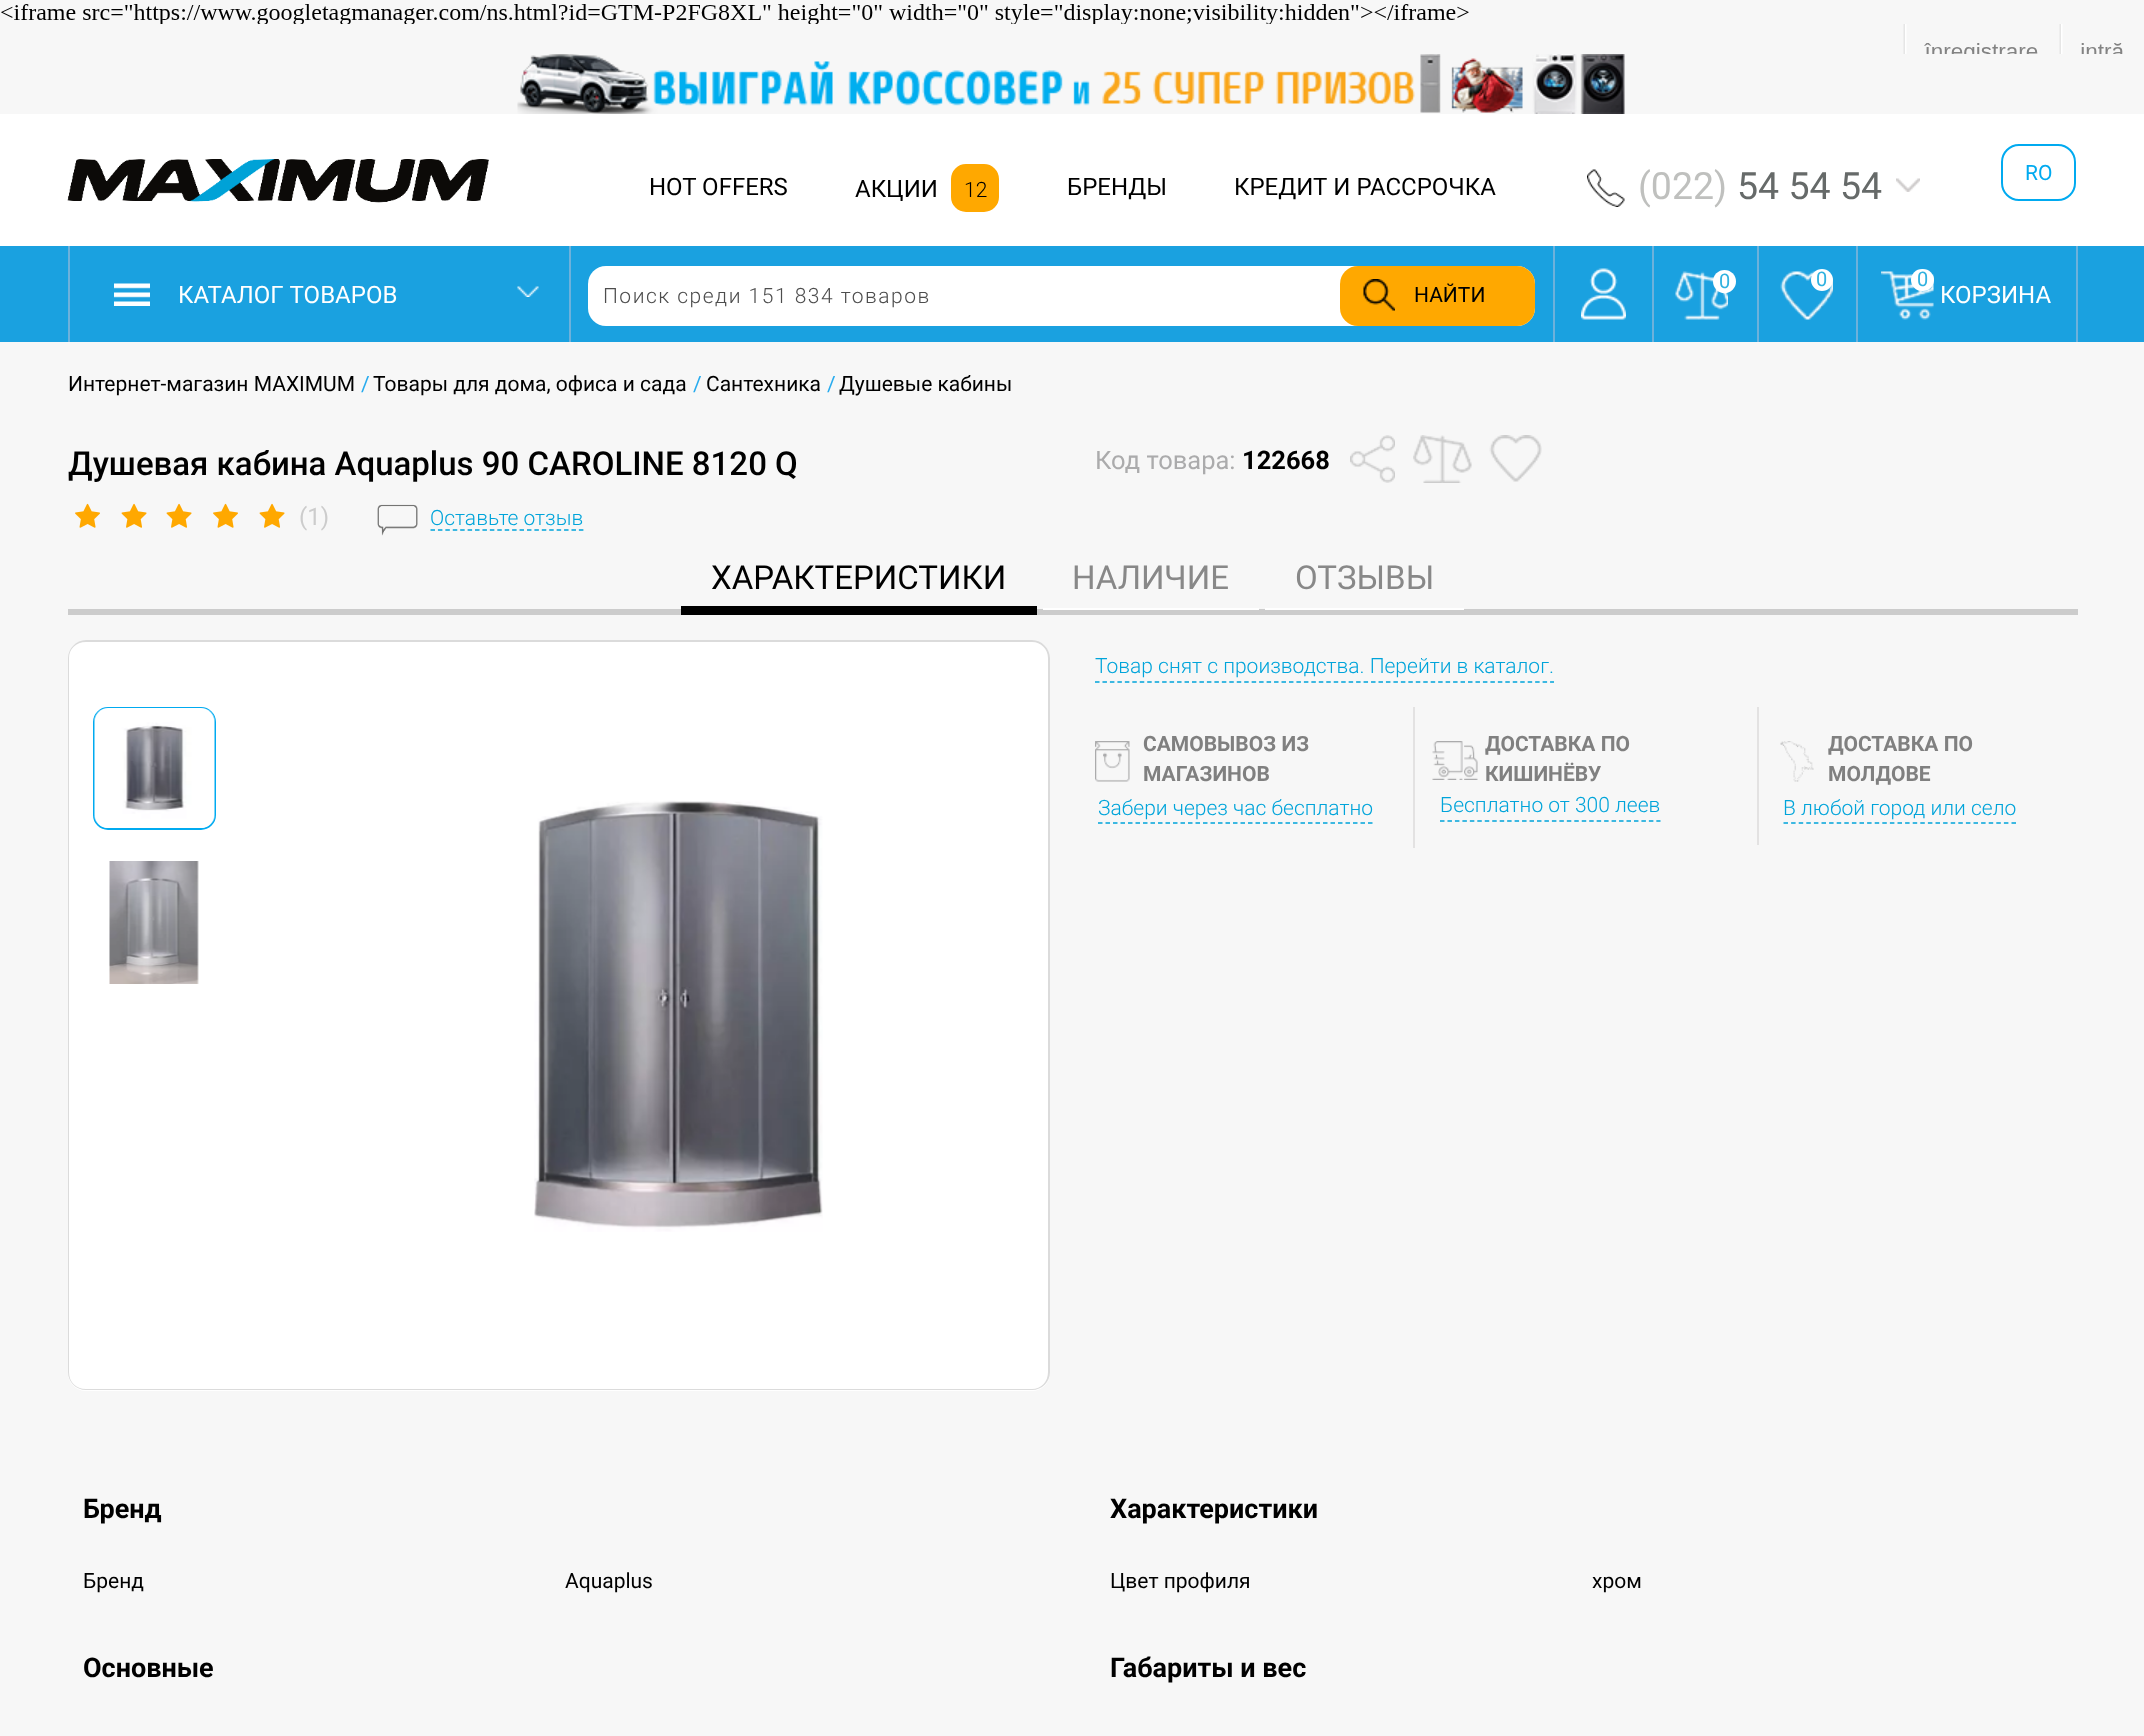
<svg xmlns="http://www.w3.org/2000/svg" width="2144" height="1736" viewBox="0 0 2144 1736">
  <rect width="100%" height="100%" fill="#ffffff"/>
  <rect x="0" y="0" width="2144" height="114" fill="#f7f7f7"/>
  <image x="517" y="54" width="1108" height="60" href="img1.png"/>
  <image x="1" y="4" width="2122" height="50" href="img2.png"/>
  <image x="67" y="159" width="422" height="44" href="img3.png"/>
  <text x="649" y="195" font-family="Roboto" font-size="24" fill="#000000">HOT OFFERS</text>
  <text x="855" y="197" font-family="Roboto" font-size="24" fill="#000000">АКЦИИ</text>
  <rect x="952" y="165" width="46" height="46" rx="14" fill="#ffa800" stroke="#ffa800" stroke-width="2"/>
  <text x="964" y="197" font-family="Roboto" font-size="21" font-weight="300" fill="#000000">12</text>
  <text x="1067" y="195" font-family="Roboto" font-size="24" fill="#000000">БРЕНДЫ</text>
  <text x="1234" y="195" font-family="Roboto" font-size="24" fill="#000000">КРЕДИТ И РАССРОЧКА</text>
  <image x="1587" y="169" width="38" height="38" href="img4.png"/>
  <text x="1638" y="199" font-family="Roboto" font-size="37.5" fill="#bfc0be">(022)</text>
  <text x="1737" y="199" font-family="Roboto" font-size="37.5" fill="#666a69">54 54 54</text>
  <image x="1896" y="178" width="24" height="14" href="img5.png"/>
  <rect x="2002" y="145" width="73" height="55" rx="17" fill="none" stroke="#00aaf0" stroke-width="2"/>
  <text x="2025" y="180" font-family="Roboto" font-size="21" fill="#00aaf0">RO</text>
  <rect x="0" y="246" width="2144" height="96" fill="#1aa1e0"/>
  <rect x="569" y="246" width="2" height="96" fill="#6db1db"/>
  <rect x="68" y="246" width="2" height="96" fill="#6db1db"/>
  <image x="114" y="283" width="36" height="23" href="img6.png"/>
  <text x="178" y="303" font-family="Roboto" font-size="24" fill="#ffffff">КАТАЛОГ ТОВАРОВ</text>
  <image x="517" y="286" width="22" height="11" href="img7.png"/>
  <rect x="588" y="266" width="947" height="60" rx="18" fill="#ffffff"/>
  <text x="603" y="303" font-family="Roboto" font-size="21" font-weight="300" letter-spacing="1.5" fill="#4d4d4d">Поиск среди 151 834 товаров</text>
  <rect x="1340" y="266" width="195" height="60" rx="18" fill="#ffa800"/>
  <image x="1363" y="279" width="32" height="32" href="img8.png"/>
  <text x="1414" y="302" font-family="Roboto" font-size="21" fill="#000000">НАЙТИ</text>
  <rect x="1553" y="246" width="2" height="96" fill="#6db1db"/>
  <image x="1581" y="268" width="45" height="52" href="img9.png"/>
  <rect x="1652" y="246" width="2" height="96" fill="#6db1db"/>
  <image x="1675" y="271" width="53" height="49" href="img10.png"/>
  <circle cx="1724.5" cy="281.5" r="11.5" fill="#ffffff"/>
  <text x="1719" y="288" font-family="Roboto" font-size="20" fill="#30b2e0">0</text>
  <rect x="1757" y="246" width="2" height="96" fill="#6db1db"/>
  <image x="1780" y="271" width="53" height="49" href="img11.png"/>
  <circle cx="1822" cy="280" r="11" fill="#ffffff"/>
  <text x="1816" y="286" font-family="Roboto" font-size="20" fill="#30b2e0">0</text>
  <rect x="2076" y="246" width="2" height="96" fill="#6db1db"/>
  <rect x="1856" y="246" width="2" height="96" fill="#6db1db"/>
  <image x="1881" y="271" width="53" height="49" href="img12.png"/>
  <rect x="1911" y="269" width="23" height="22" rx="11" fill="#ffffff"/>
  <text x="1917" y="286" font-family="Roboto" font-size="20" fill="#30b2e0">0</text>
  <text x="1940" y="303" font-family="Roboto" font-size="24" fill="#ffffff">КОРЗИНА</text>
  <rect x="0" y="342" width="2144" height="1394" fill="#f7f7f7"/>
  <text x="68" y="391" font-family="Roboto" font-size="21" fill="#000000">Интернет-магазин MAXIMUM</text>
  <text x="361" y="391" font-family="Roboto" font-size="21" fill="#28abee">/</text>
  <text x="373" y="391" font-family="Roboto" font-size="21" fill="#000000">Товары для дома, офиса и сада</text>
  <text x="693" y="391" font-family="Roboto" font-size="21" fill="#28abee">/</text>
  <text x="706" y="391" font-family="Roboto" font-size="21" fill="#000000">Сантехника</text>
  <text x="827" y="391" font-family="Roboto" font-size="21" fill="#28abee">/</text>
  <text x="839" y="391" font-family="Roboto" font-size="21" fill="#000000">Душевые кабины</text>
  <text x="68" y="475" font-family="Roboto" font-size="33" font-weight="500" fill="#000000">Душевая кабина Aquaplus 90 CAROLINE 8120 Q</text>
  <image x="75" y="503" width="25" height="25" href="img13.png"/>
  <image x="121" y="503" width="26" height="25" href="img14.png"/>
  <image x="166" y="503" width="26" height="25" href="img14.png"/>
  <image x="213" y="503" width="25" height="25" href="img13.png"/>
  <image x="259" y="503" width="26" height="25" href="img14.png"/>
  <text x="299" y="525" font-family="Roboto" font-size="24" fill="#cccccc">(1)</text>
  <image x="377" y="504" width="41" height="32" href="img15.png"/>
  <text x="430" y="525" font-family="Roboto" font-size="21" font-weight="300" fill="#00a4da">Оставьте отзыв</text>
  <path d="M430.5 530H583.5" fill="none" stroke="#00a4da" stroke-width="1.5" stroke-dasharray="4.5 2.92"/>
  <text x="1095" y="469" font-family="Roboto" font-size="25.5" fill="#ababac">Код товара:</text>
  <text x="1242" y="469" font-family="Roboto" font-size="25.5" font-weight="bold" fill="#000000">122668</text>
  <image x="1350" y="435" width="45" height="48" href="img16.png"/>
  <image x="1413" y="435" width="59" height="48" href="img17.png"/>
  <image x="1489" y="435" width="53" height="47" href="img18.png"/>
  <rect x="68" y="609" width="2010" height="6" fill="#cccccc"/>
  <text x="711" y="589" font-family="Roboto" font-size="33" fill="#000000">ХАРАКТЕРИСТИКИ</text>
  <rect x="681" y="606" width="356" height="9" fill="#000000"/>
  <rect x="1043" y="608" width="216" height="2" fill="#ffffff"/>
  <text x="1072" y="589" font-family="Roboto" font-size="33" fill="#888888">НАЛИЧИЕ</text>
  <rect x="1265" y="608" width="199" height="2" fill="#ffffff"/>
  <text x="1295" y="589" font-family="Roboto" font-size="33" fill="#888888">ОТЗЫВЫ</text>
  <text x="83" y="1518" font-family="Roboto" font-size="27" font-weight="bold" fill="#000000">Бренд</text>
  <text x="83" y="1588" font-family="Roboto" font-size="21" fill="#000000">Бренд</text>
  <text x="565" y="1588" font-family="Roboto" font-size="21" fill="#000000">Aquaplus</text>
  <text x="83" y="1677" font-family="Roboto" font-size="27" font-weight="bold" fill="#000000">Основные</text>
  <text x="1110" y="1518" font-family="Roboto" font-size="27" font-weight="bold" fill="#000000">Характеристики</text>
  <text x="1110" y="1588" font-family="Roboto" font-size="21" fill="#000000">Цвет профиля</text>
  <text x="1592" y="1588" font-family="Roboto" font-size="21" fill="#000000">хром</text>
  <text x="1110" y="1677" font-family="Roboto" font-size="27" font-weight="bold" fill="#000000">Габариты и вес</text>
  <path d="M86 641H323V1391H86C76 1391 68 1383 68 1373V659C68 649 76 641 86 641Z" fill="#ffffff"/>
  <path d="M86 640H322V1390H86C76 1390 68 1382 68 1372V658C68 649 76 640 86 640ZM86 642H322V1389H86C76 1389 69 1382 69 1372V658C69 649 76 642 86 642Z" fill="#dbdbdb" fill-rule="evenodd"/>
  <rect x="94" y="708" width="121" height="121" rx="14" fill="none" stroke="#00aaf0" stroke-width="2"/>
  <image x="94" y="708" width="121" height="120" href="img19.png"/>
  <image x="109" y="861" width="90" height="123" href="img20.png"/>
  <path d="M306 641H1032C1042 641 1050 649 1050 659V1373C1050 1383 1042 1391 1032 1391H306Z" fill="#ffffff"/>
  <path d="M306 640H1032C1042 640 1050 649 1050 658V1372C1050 1382 1042 1390 1032 1390H306ZM306 642H1032C1041 642 1048 649 1048 658V1372C1048 1382 1041 1389 1032 1389H306Z" fill="#dbdbdb" fill-rule="evenodd"/>
  <image x="534" y="800" width="289" height="432" href="img21.png"/>
  <path d="M1095 682H1554" fill="none" stroke="#00a4da" stroke-width="1.5" stroke-dasharray="4.5 2.96"/>
  <text x="1095" y="673" font-family="Roboto" font-size="21" font-weight="300" fill="#00a4da">Товар снят с производства. Перейти в каталог.</text>
  <image x="1095" y="741" width="35" height="41" href="img22.png"/>
  <text x="1143" y="751" font-family="Roboto" font-size="21" font-weight="bold" fill="#808080">САМОВЫВОЗ ИЗ</text>
  <text x="1143" y="781" font-family="Roboto" font-size="21" font-weight="bold" fill="#808080">МАГАЗИНОВ</text>
  <rect x="1413" y="707" width="2" height="141" fill="#e3e2e2"/>
  <path d="M1098 823H1372.5" fill="none" stroke="#00a4da" stroke-width="1.5" stroke-dasharray="4.5 3"/>
  <text x="1098" y="815" font-family="Roboto" font-size="21" font-weight="300" fill="#00a4da">Забери через час бесплатно</text>
  <image x="1432" y="741" width="46" height="39" href="img23.png"/>
  <text x="1485" y="751" font-family="Roboto" font-size="21" font-weight="bold" fill="#808080">ДОСТАВКА ПО</text>
  <text x="1485" y="781" font-family="Roboto" font-size="21" font-weight="bold" fill="#808080">КИШИНЁВУ</text>
  <rect x="1757" y="707" width="2" height="138" fill="#e3e2e2"/>
  <path d="M1440 821H1660.5" fill="none" stroke="#00a4da" stroke-width="1.5" stroke-dasharray="4.5 2.96"/>
  <text x="1440" y="812" font-family="Roboto" font-size="21" font-weight="300" fill="#00a4da">Бесплатно от 300 леев</text>
  <image x="1780" y="741" width="34" height="41" href="img24.png"/>
  <text x="1828" y="751" font-family="Roboto" font-size="21" font-weight="bold" fill="#808080">ДОСТАВКА ПО</text>
  <text x="1828" y="781" font-family="Roboto" font-size="21" font-weight="bold" fill="#808080">МОЛДОВЕ</text>
  <path d="M1783.5 823H2016" fill="none" stroke="#00a4da" stroke-width="1.5" stroke-dasharray="4.5 3.1"/>
  <text x="1783" y="815" font-family="Roboto" font-size="21" font-weight="300" fill="#00a4da">В любой город или село</text>
</svg>
